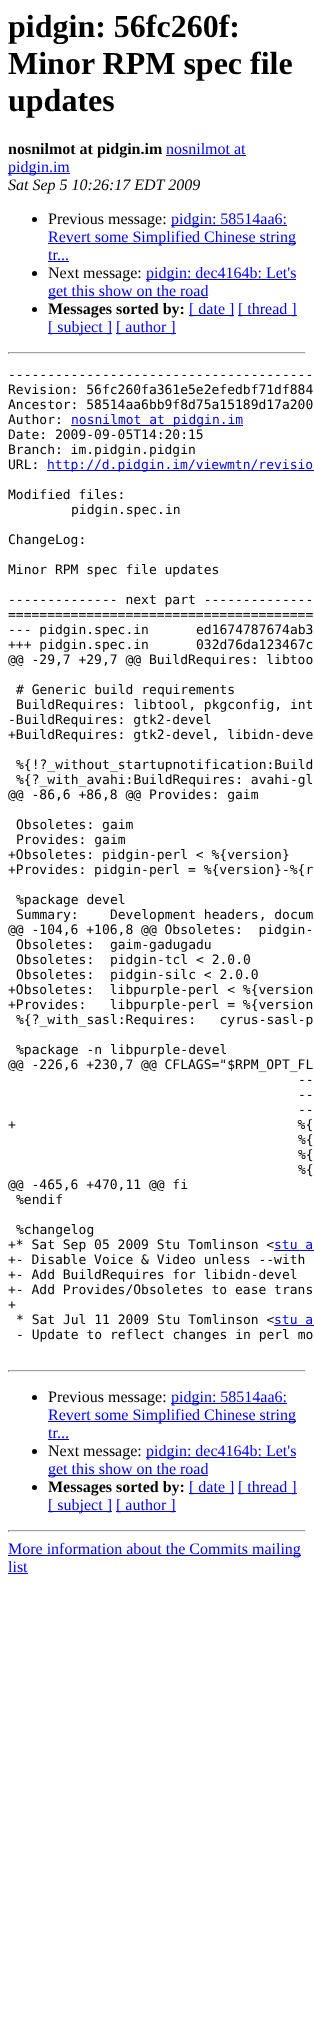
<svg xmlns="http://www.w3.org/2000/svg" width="314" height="2039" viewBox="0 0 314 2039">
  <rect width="100%" height="100%" fill="#ffffff"/>
  <text x="8" y="37" font-family="Liberation Serif" font-size="32" font-weight="bold" fill="#000000">pidgin: 56fc260f:</text>
  <text x="8" y="74" font-family="Liberation Serif" font-size="32" font-weight="bold" fill="#000000">Minor RPM spec file</text>
  <text x="8" y="111" font-family="Liberation Serif" font-size="32" font-weight="bold" fill="#000000">updates</text>
  <text x="8" y="154" font-family="Liberation Serif" font-size="16" font-weight="bold" fill="#000000">nosnilmot at pidgin.im</text>
  <text x="166" y="154" font-family="Liberation Serif" font-size="16" fill="#0000ee">nosnilmot at</text>
  <rect x="166" y="155" width="80" height="1" fill="#0000ee"/>
  <rect x="8" y="173" width="62" height="1" fill="#0000ee"/>
  <text x="8" y="172" font-family="Liberation Serif" font-size="16" fill="#0000ee">pidgin.im</text>
  <text x="8" y="190" font-family="Liberation Serif" font-size="16" font-style="italic" fill="#000000">Sat Sep 5 10:26:17 EDT 2009</text>
  <circle cx="34.5" cy="219.5" r="2.5" fill="#000000"/>
  <text x="48" y="224" font-family="Liberation Serif" font-size="16" fill="#000000">Previous message:</text>
  <rect x="171" y="225" width="116" height="1" fill="#0000ee"/>
  <text x="171" y="224" font-family="Liberation Serif" font-size="16" fill="#0000ee">pidgin: 58514aa6:</text>
  <rect x="48" y="243" width="248" height="1" fill="#0000ee"/>
  <text x="48" y="242" font-family="Liberation Serif" font-size="16" fill="#0000ee">Revert some Simplified Chinese string</text>
  <text x="48" y="260" font-family="Liberation Serif" font-size="16" fill="#0000ee">tr...</text>
  <rect x="48" y="261" width="21" height="1" fill="#0000ee"/>
  <circle cx="34.5" cy="273.5" r="2.5" fill="#000000"/>
  <text x="48" y="278" font-family="Liberation Serif" font-size="16" fill="#000000">Next message:</text>
  <rect x="146" y="279" width="150" height="1" fill="#0000ee"/>
  <text x="146" y="278" font-family="Liberation Serif" font-size="16" fill="#0000ee">pidgin: dec4164b: Let's</text>
  <rect x="48" y="297" width="160" height="1" fill="#0000ee"/>
  <text x="48" y="296" font-family="Liberation Serif" font-size="16" fill="#0000ee">get this show on the road</text>
  <circle cx="34.5" cy="309.5" r="2.5" fill="#000000"/>
  <text x="48" y="314" font-family="Liberation Serif" font-size="16" font-weight="bold" fill="#000000">Messages sorted by:</text>
  <rect x="189" y="315" width="45" height="1" fill="#0000ee"/>
  <text x="189" y="314" font-family="Liberation Serif" font-size="16" fill="#0000ee">[ date ]</text>
  <rect x="238" y="315" width="59" height="1" fill="#0000ee"/>
  <text x="238" y="314" font-family="Liberation Serif" font-size="16" fill="#0000ee">[ thread ]</text>
  <rect x="48" y="333" width="64" height="1" fill="#0000ee"/>
  <text x="48" y="332" font-family="Liberation Serif" font-size="16" fill="#0000ee">[ subject ]</text>
  <rect x="116" y="333" width="60" height="1" fill="#0000ee"/>
  <text x="116" y="332" font-family="Liberation Serif" font-size="16" fill="#0000ee">[ author ]</text>
  <rect x="8" y="352" width="298" height="1" fill="#9f9f9f"/>
  <rect x="305" y="352" width="1" height="2" fill="#eeeeee"/>
  <rect x="8" y="353" width="298" height="1" fill="#eeeeee"/>
  <rect x="8" y="352" width="1" height="2" fill="#9f9f9f"/>
  <text x="8" y="379" font-family="DejaVu Sans Mono" font-size="13" fill="#000000">---------------------------------------</text>
  <text x="8" y="394" font-family="DejaVu Sans Mono" font-size="13" fill="#000000">Revision: 56fc260fa361e5e2efedbf71df884</text>
  <text x="8" y="409" font-family="DejaVu Sans Mono" font-size="13" fill="#000000">Ancestor: 58514aa6bb9f8d75a15189d17a200</text>
  <text x="8" y="424" font-family="DejaVu Sans Mono" font-size="13" fill="#000000">Author:</text>
  <rect x="71" y="425" width="172" height="1" fill="#0000ee"/>
  <text x="71" y="424" font-family="DejaVu Sans Mono" font-size="13" fill="#0000ee">nosnilmot at pidgin.im</text>
  <text x="8" y="439" font-family="DejaVu Sans Mono" font-size="13" fill="#000000">Date: 2009-09-05T14:20:15</text>
  <text x="8" y="454" font-family="DejaVu Sans Mono" font-size="13" fill="#000000">Branch: im.pidgin.pidgin</text>
  <text x="8" y="469" font-family="DejaVu Sans Mono" font-size="13" fill="#000000">URL:</text>
  <rect x="47" y="470" width="267" height="1" fill="#0000ee"/>
  <text x="47" y="469" font-family="DejaVu Sans Mono" font-size="13" fill="#0000ee">http://d.pidgin.im/viewmtn/revisio</text>
  <text x="8" y="499" font-family="DejaVu Sans Mono" font-size="13" fill="#000000">Modified files:</text>
  <text x="71" y="514" font-family="DejaVu Sans Mono" font-size="13" fill="#000000">pidgin.spec.in</text>
  <text x="8" y="544" font-family="DejaVu Sans Mono" font-size="13" fill="#000000">ChangeLog:</text>
  <text x="8" y="574" font-family="DejaVu Sans Mono" font-size="13" fill="#000000">Minor RPM spec file updates</text>
  <text x="8" y="604" font-family="DejaVu Sans Mono" font-size="13" fill="#000000">-------------- next part --------------</text>
  <text x="8" y="619" font-family="DejaVu Sans Mono" font-size="13" fill="#000000">=======================================</text>
  <text x="8" y="634" font-family="DejaVu Sans Mono" font-size="13" fill="#000000">--- pidgin.spec.in</text>
  <text x="196" y="634" font-family="DejaVu Sans Mono" font-size="13" fill="#000000">ed1674787674ab3</text>
  <text x="8" y="649" font-family="DejaVu Sans Mono" font-size="13" fill="#000000">+++ pidgin.spec.in</text>
  <text x="196" y="649" font-family="DejaVu Sans Mono" font-size="13" fill="#000000">032d76da123467c</text>
  <text x="8" y="664" font-family="DejaVu Sans Mono" font-size="13" fill="#000000">@@ -29,7 +29,7 @@ BuildRequires: libtoo</text>
  <text x="16" y="694" font-family="DejaVu Sans Mono" font-size="13" fill="#000000"># Generic build requirements</text>
  <text x="16" y="709" font-family="DejaVu Sans Mono" font-size="13" fill="#000000">BuildRequires: libtool, pkgconfig, int</text>
  <text x="8" y="724" font-family="DejaVu Sans Mono" font-size="13" fill="#000000">-BuildRequires: gtk2-devel</text>
  <text x="8" y="739" font-family="DejaVu Sans Mono" font-size="13" fill="#000000">+BuildRequires: gtk2-devel, libidn-deve</text>
  <text x="16" y="769" font-family="DejaVu Sans Mono" font-size="13" fill="#000000">%{!?_without_startupnotification:Build</text>
  <text x="16" y="784" font-family="DejaVu Sans Mono" font-size="13" fill="#000000">%{?_with_avahi:BuildRequires: avahi-gl</text>
  <text x="8" y="799" font-family="DejaVu Sans Mono" font-size="13" fill="#000000">@@ -86,6 +86,8 @@ Provides: gaim</text>
  <text x="16" y="829" font-family="DejaVu Sans Mono" font-size="13" fill="#000000">Obsoletes: gaim</text>
  <text x="16" y="844" font-family="DejaVu Sans Mono" font-size="13" fill="#000000">Provides: gaim</text>
  <text x="8" y="859" font-family="DejaVu Sans Mono" font-size="13" fill="#000000">+Obsoletes: pidgin-perl &lt; %{version}</text>
  <text x="8" y="874" font-family="DejaVu Sans Mono" font-size="13" fill="#000000">+Provides: pidgin-perl = %{version}-%{r</text>
  <text x="16" y="904" font-family="DejaVu Sans Mono" font-size="13" fill="#000000">%package devel</text>
  <text x="16" y="919" font-family="DejaVu Sans Mono" font-size="13" fill="#000000" xml:space="preserve">Summary:    Development headers, docum</text>
  <text x="8" y="934" font-family="DejaVu Sans Mono" font-size="13" fill="#000000" xml:space="preserve">@@ -104,6 +106,8 @@ Obsoletes:  pidgin-</text>
  <text x="16" y="949" font-family="DejaVu Sans Mono" font-size="13" fill="#000000" xml:space="preserve">Obsoletes:  gaim-gadugadu</text>
  <text x="16" y="964" font-family="DejaVu Sans Mono" font-size="13" fill="#000000" xml:space="preserve">Obsoletes:  pidgin-tcl &lt; 2.0.0</text>
  <text x="16" y="979" font-family="DejaVu Sans Mono" font-size="13" fill="#000000" xml:space="preserve">Obsoletes:  pidgin-silc &lt; 2.0.0</text>
  <text x="8" y="994" font-family="DejaVu Sans Mono" font-size="13" fill="#000000" xml:space="preserve">+Obsoletes:  libpurple-perl &lt; %{version</text>
  <text x="8" y="1009" font-family="DejaVu Sans Mono" font-size="13" fill="#000000" xml:space="preserve">+Provides:   libpurple-perl = %{version</text>
  <text x="16" y="1024" font-family="DejaVu Sans Mono" font-size="13" fill="#000000" xml:space="preserve">%{?_with_sasl:Requires:   cyrus-sasl-p</text>
  <text x="16" y="1054" font-family="DejaVu Sans Mono" font-size="13" fill="#000000">%package -n libpurple-devel</text>
  <text x="8" y="1069" font-family="DejaVu Sans Mono" font-size="13" fill="#000000">@@ -226,6 +230,7 @@ CFLAGS="$RPM_OPT_FL</text>
  <text x="298" y="1084" font-family="DejaVu Sans Mono" font-size="13" fill="#000000">--</text>
  <text x="298" y="1099" font-family="DejaVu Sans Mono" font-size="13" fill="#000000">--</text>
  <text x="298" y="1114" font-family="DejaVu Sans Mono" font-size="13" fill="#000000">--</text>
  <text x="8" y="1129" font-family="DejaVu Sans Mono" font-size="13" fill="#000000" xml:space="preserve">+                                    %{</text>
  <text x="298" y="1144" font-family="DejaVu Sans Mono" font-size="13" fill="#000000">%{</text>
  <text x="298" y="1159" font-family="DejaVu Sans Mono" font-size="13" fill="#000000">%{</text>
  <text x="298" y="1174" font-family="DejaVu Sans Mono" font-size="13" fill="#000000">%{</text>
  <text x="8" y="1189" font-family="DejaVu Sans Mono" font-size="13" fill="#000000">@@ -465,6 +470,11 @@ fi</text>
  <text x="16" y="1204" font-family="DejaVu Sans Mono" font-size="13" fill="#000000">%endif</text>
  <text x="16" y="1234" font-family="DejaVu Sans Mono" font-size="13" fill="#000000">%changelog</text>
  <text x="8" y="1249" font-family="DejaVu Sans Mono" font-size="13" fill="#000000">+* Sat Sep 05 2009 Stu Tomlinson &lt;</text>
  <text x="274" y="1249" font-family="DejaVu Sans Mono" font-size="13" fill="#0000ee">stu a</text>
  <rect x="274" y="1250" width="40" height="1" fill="#0000ee"/>
  <text x="8" y="1264" font-family="DejaVu Sans Mono" font-size="13" fill="#000000">+- Disable Voice &amp; Video unless --with</text>
  <text x="8" y="1279" font-family="DejaVu Sans Mono" font-size="13" fill="#000000">+- Add BuildRequires for libidn-devel</text>
  <text x="8" y="1294" font-family="DejaVu Sans Mono" font-size="13" fill="#000000">+- Add Provides/Obsoletes to ease trans</text>
  <text x="8" y="1309" font-family="DejaVu Sans Mono" font-size="13" fill="#000000">+</text>
  <text x="16" y="1324" font-family="DejaVu Sans Mono" font-size="13" fill="#000000">* Sat Jul 11 2009 Stu Tomlinson &lt;</text>
  <text x="274" y="1324" font-family="DejaVu Sans Mono" font-size="13" fill="#0000ee">stu a</text>
  <rect x="274" y="1325" width="40" height="1" fill="#0000ee"/>
  <text x="16" y="1339" font-family="DejaVu Sans Mono" font-size="13" fill="#000000">- Update to reflect changes in perl mo</text>
  <rect x="8" y="1370" width="298" height="1" fill="#9f9f9f"/>
  <rect x="305" y="1370" width="1" height="2" fill="#eeeeee"/>
  <rect x="8" y="1371" width="298" height="1" fill="#eeeeee"/>
  <rect x="8" y="1370" width="1" height="2" fill="#9f9f9f"/>
  <circle cx="34.5" cy="1397.5" r="2.5" fill="#000000"/>
  <text x="48" y="1402" font-family="Liberation Serif" font-size="16" fill="#000000">Previous message:</text>
  <rect x="171" y="1403" width="116" height="1" fill="#0000ee"/>
  <text x="171" y="1402" font-family="Liberation Serif" font-size="16" fill="#0000ee">pidgin: 58514aa6:</text>
  <rect x="48" y="1421" width="248" height="1" fill="#0000ee"/>
  <text x="48" y="1420" font-family="Liberation Serif" font-size="16" fill="#0000ee">Revert some Simplified Chinese string</text>
  <text x="48" y="1438" font-family="Liberation Serif" font-size="16" fill="#0000ee">tr...</text>
  <rect x="48" y="1439" width="21" height="1" fill="#0000ee"/>
  <circle cx="34.5" cy="1451.5" r="2.5" fill="#000000"/>
  <text x="48" y="1456" font-family="Liberation Serif" font-size="16" fill="#000000">Next message:</text>
  <rect x="146" y="1457" width="150" height="1" fill="#0000ee"/>
  <text x="146" y="1456" font-family="Liberation Serif" font-size="16" fill="#0000ee">pidgin: dec4164b: Let's</text>
  <rect x="48" y="1475" width="160" height="1" fill="#0000ee"/>
  <text x="48" y="1474" font-family="Liberation Serif" font-size="16" fill="#0000ee">get this show on the road</text>
  <circle cx="34.5" cy="1487.5" r="2.5" fill="#000000"/>
  <text x="48" y="1492" font-family="Liberation Serif" font-size="16" font-weight="bold" fill="#000000">Messages sorted by:</text>
  <rect x="189" y="1493" width="45" height="1" fill="#0000ee"/>
  <text x="189" y="1492" font-family="Liberation Serif" font-size="16" fill="#0000ee">[ date ]</text>
  <rect x="238" y="1493" width="59" height="1" fill="#0000ee"/>
  <text x="238" y="1492" font-family="Liberation Serif" font-size="16" fill="#0000ee">[ thread ]</text>
  <rect x="48" y="1511" width="64" height="1" fill="#0000ee"/>
  <text x="48" y="1510" font-family="Liberation Serif" font-size="16" fill="#0000ee">[ subject ]</text>
  <rect x="116" y="1511" width="60" height="1" fill="#0000ee"/>
  <text x="116" y="1510" font-family="Liberation Serif" font-size="16" fill="#0000ee">[ author ]</text>
  <rect x="8" y="1530" width="298" height="1" fill="#9f9f9f"/>
  <rect x="305" y="1530" width="1" height="2" fill="#eeeeee"/>
  <rect x="8" y="1531" width="298" height="1" fill="#eeeeee"/>
  <rect x="8" y="1530" width="1" height="2" fill="#9f9f9f"/>
  <rect x="8" y="1555" width="293" height="1" fill="#0000ee"/>
  <text x="8" y="1554" font-family="Liberation Serif" font-size="16" fill="#0000ee">More information about the Commits mailing</text>
  <text x="8" y="1572" font-family="Liberation Serif" font-size="16" fill="#0000ee">list</text>
  <rect x="8" y="1573" width="20" height="1" fill="#0000ee"/>
</svg>
